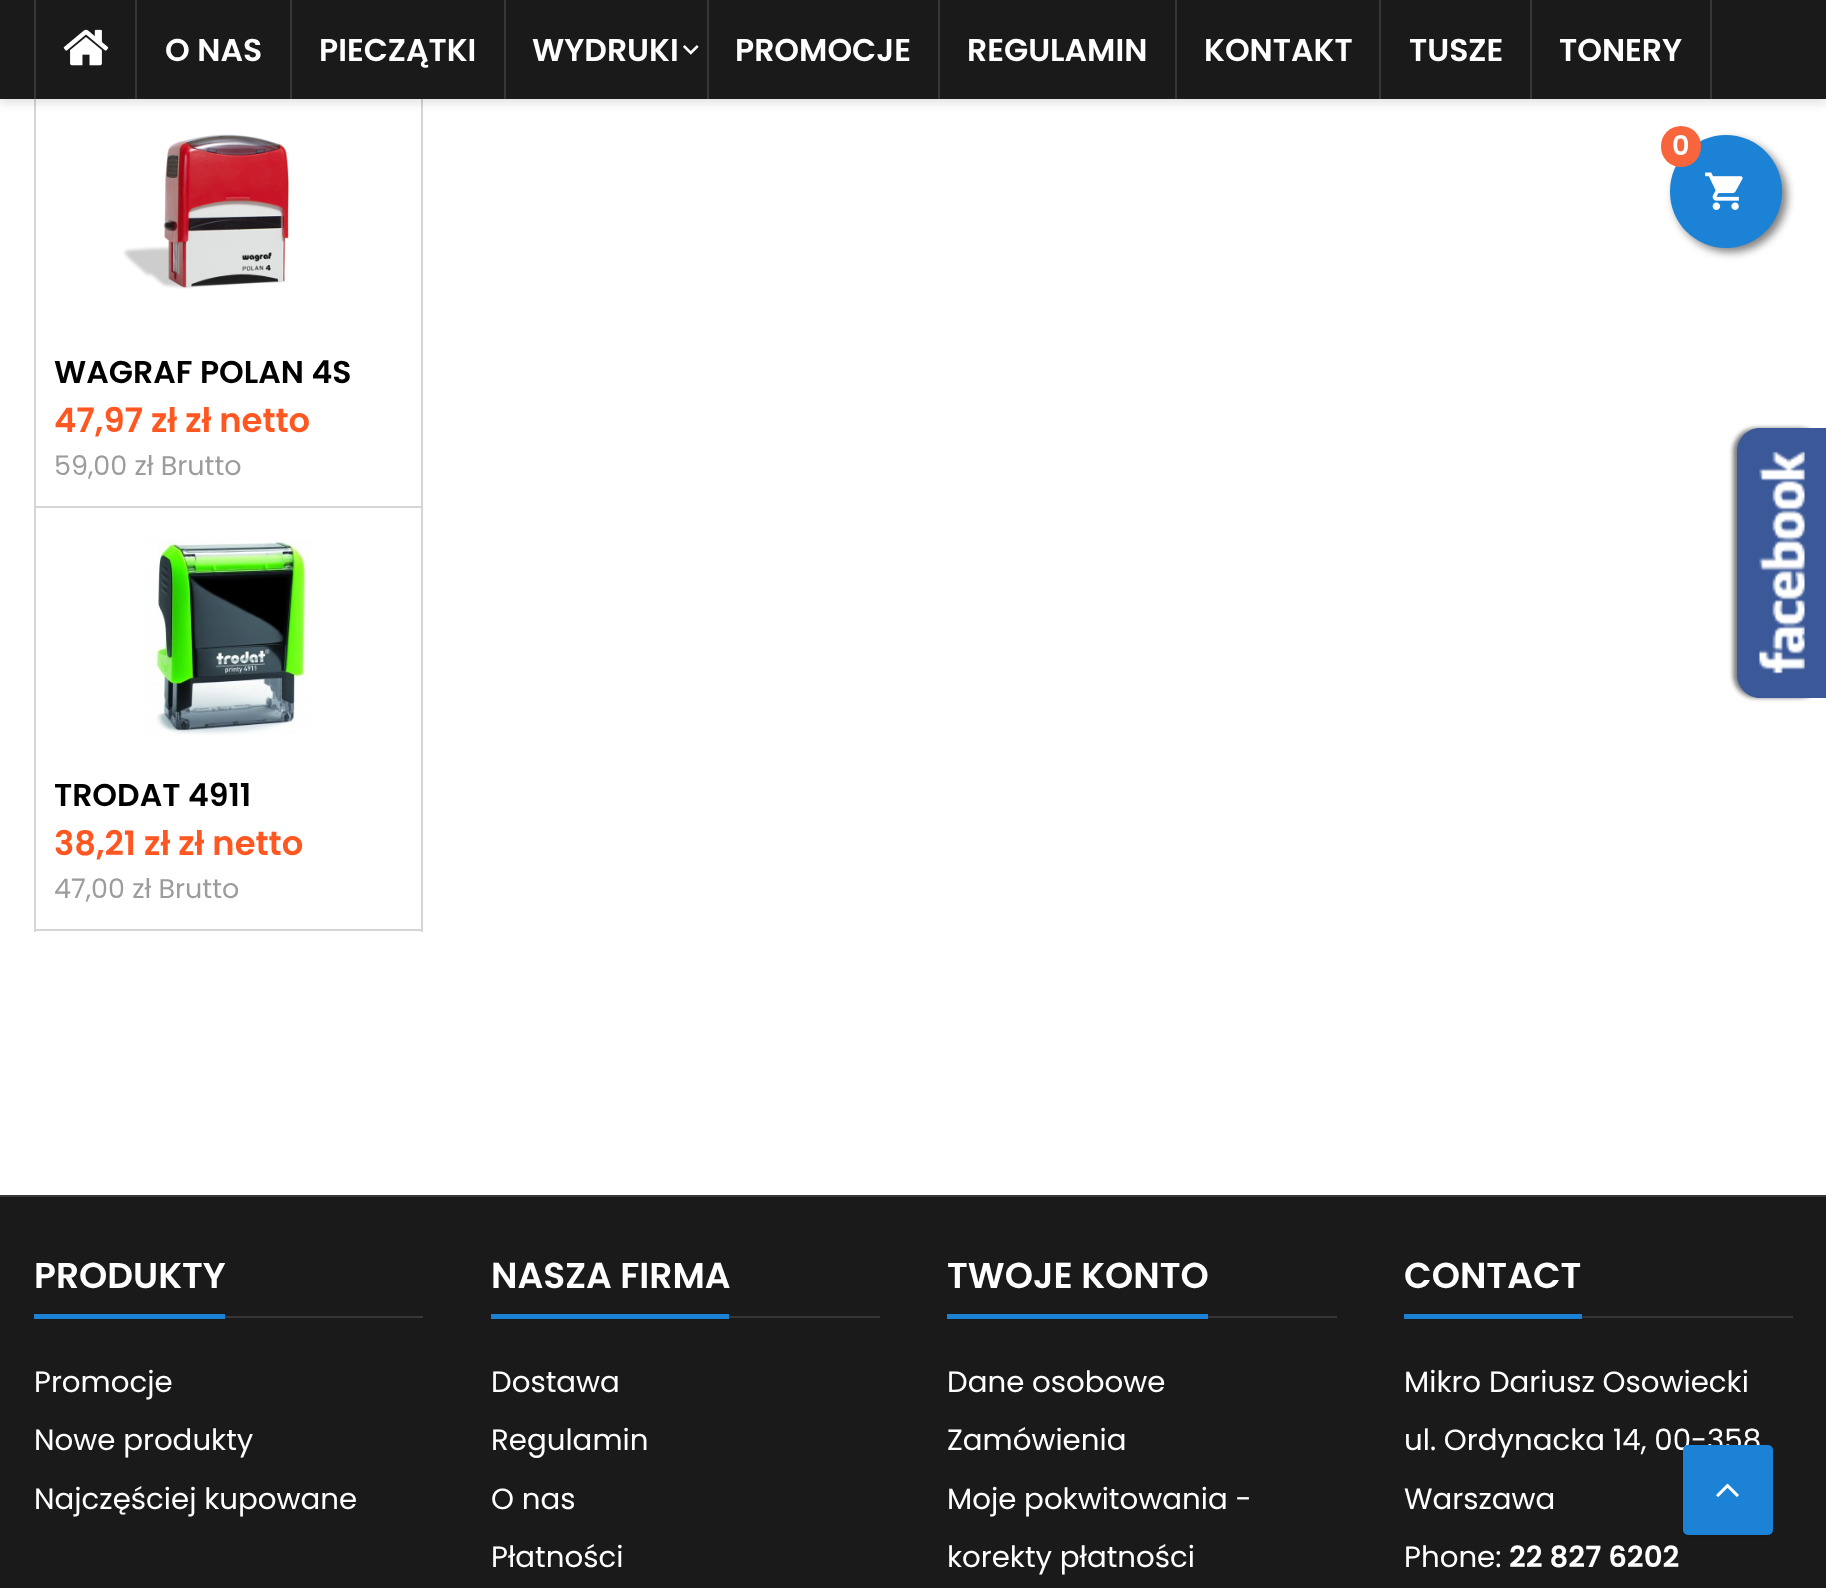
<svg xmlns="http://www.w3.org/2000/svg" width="1826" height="1588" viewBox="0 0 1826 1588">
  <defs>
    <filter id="blur1" x="-50%" y="-200%" width="200%" height="500%"><feGaussianBlur stdDeviation="4.5"/></filter>
    <filter id="blur2" x="-50%" y="-200%" width="200%" height="500%"><feGaussianBlur stdDeviation="2"/></filter>
    <filter id="blur3" x="-50%" y="-200%" width="200%" height="500%"><feGaussianBlur stdDeviation="1"/></filter>
  </defs>
  <rect width="100%" height="100%" fill="#ffffff"/>
  <rect x="421" y="99" width="2" height="833" fill="#d6d4d4"/>
  <rect x="34" y="506" width="389" height="2" fill="#d6d4d4"/>
  <rect x="34" y="99" width="2" height="410" fill="#d6d4d4"/>
  <rect x="0" y="5" width="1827" height="99" fill="#000000" fill-opacity="0.1" filter="url(#blur1)"/>
  <rect x="0" y="0" width="1826" height="99" fill="#1b1a1b"/>
  <rect x="34" y="0" width="2" height="99" fill="#363636"/>
  <image x="63" y="29" width="46" height="37" href="img1.png"/>
  <rect x="135" y="0" width="2" height="99" fill="#363636"/>
  <text x="165" y="61" font-family="Poppins" font-size="31.5" font-weight="600" fill="#ffffff">O NAS</text>
  <rect x="290" y="0" width="2" height="99" fill="#363636"/>
  <text x="319" y="61" font-family="Poppins" font-size="31.5" font-weight="600" fill="#ffffff">PIECZĄTKI</text>
  <rect x="504" y="0" width="2" height="99" fill="#363636"/>
  <text x="532" y="61" font-family="Poppins" font-size="31.5" font-weight="600" fill="#ffffff">WYDRUKI</text>
  <image x="683" y="45" width="16" height="10" href="img2.png"/>
  <rect x="707" y="0" width="2" height="99" fill="#363636"/>
  <text x="735" y="61" font-family="Poppins" font-size="31.5" font-weight="600" fill="#ffffff">PROMOCJE</text>
  <rect x="938" y="0" width="2" height="99" fill="#363636"/>
  <text x="967" y="61" font-family="Poppins" font-size="31.5" font-weight="600" fill="#ffffff">REGULAMIN</text>
  <rect x="1175" y="0" width="2" height="99" fill="#363636"/>
  <text x="1204" y="61" font-family="Poppins" font-size="31.5" font-weight="600" fill="#ffffff">KONTAKT</text>
  <rect x="1379" y="0" width="2" height="99" fill="#363636"/>
  <text x="1409" y="61" font-family="Poppins" font-size="31.5" font-weight="600" fill="#ffffff">TUSZE</text>
  <rect x="1710" y="0" width="2" height="99" fill="#363636"/>
  <rect x="1530" y="0" width="2" height="99" fill="#363636"/>
  <text x="1559" y="61" font-family="Poppins" font-size="31.5" font-weight="600" fill="#ffffff">TONERY</text>
  <rect x="1674" y="140" width="113" height="112" rx="56" fill="#000000" fill-opacity="0.5" filter="url(#blur1)"/>
  <rect x="1670" y="135" width="112" height="113" rx="56" fill="#1b82d6"/>
  <rect x="1661" y="126" width="40" height="41" rx="20" fill="#f8653d"/>
  <text x="1672" y="155" font-family="Poppins" font-size="27" font-weight="600" fill="#ffffff">0</text>
  <image x="1705" y="172" width="38" height="38" href="img3.png"/>
  <image x="123" y="134" width="166" height="155" href="img4.png"/>
  <text x="54" y="383" font-family="Poppins" font-size="31.5" font-weight="600" fill="#000000">WAGRAF POLAN 4S</text>
  <text x="54" y="432" font-family="Poppins" font-size="33.75" font-weight="600" fill="#ff5722">47,97 zł zł netto</text>
  <text x="54" y="475" font-family="Poppins" font-size="27" fill="#9c9c9c">59,00 zł Brutto</text>
  <rect x="34" y="929" width="389" height="2" fill="#d6d4d4"/>
  <rect x="34" y="509" width="2" height="423" fill="#d6d4d4"/>
  <image x="145" y="539" width="165" height="196" href="img5.png"/>
  <text x="54" y="806" font-family="Poppins" font-size="31.5" font-weight="600" fill="#000000">TRODAT 4911</text>
  <text x="54" y="855" font-family="Poppins" font-size="33.75" font-weight="600" fill="#ff5722">38,21 zł zł netto</text>
  <text x="54" y="898" font-family="Poppins" font-size="27" fill="#9c9c9c">47,00 zł Brutto</text>
  <rect x="1733" y="428" width="90" height="270" rx="23" fill="#000000" fill-opacity="0.5" filter="url(#blur2)"/>
  <path d="M1760 428H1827V698H1760C1747.5 698 1737 687.5 1737 675V451C1737 438.5 1747.5 428 1760 428Z" fill="#3b5998"/>
  <image x="1759" y="451" width="46" height="223" href="img6.png"/>
  <rect x="0" y="1197" width="1826" height="391" fill="#1b1a1b"/>
  <rect x="0" y="1195" width="1826" height="2" fill="#363636"/>
  <rect x="225" y="1316" width="198" height="2" fill="#363636"/>
  <rect x="34" y="1314" width="191" height="5" fill="#1b82d6"/>
  <text x="34" y="1288" font-family="Poppins" font-size="36" font-weight="600" fill="#ffffff">PRODUKTY</text>
  <text x="34" y="1392" font-family="Poppins" font-size="29.25" fill="#ffffff">Promocje</text>
  <text x="34" y="1450" font-family="Poppins" font-size="29.25" fill="#ffffff">Nowe produkty</text>
  <text x="34" y="1509" font-family="Poppins" font-size="29.25" fill="#ffffff">Najczęściej kupowane</text>
  <rect x="729" y="1316" width="151" height="2" fill="#363636"/>
  <rect x="491" y="1314" width="238" height="5" fill="#1b82d6"/>
  <text x="491" y="1288" font-family="Poppins" font-size="36" font-weight="600" fill="#ffffff">NASZA FIRMA</text>
  <text x="491" y="1392" font-family="Poppins" font-size="29.25" fill="#ffffff">Dostawa</text>
  <text x="491" y="1450" font-family="Poppins" font-size="29.25" fill="#ffffff">Regulamin</text>
  <text x="491" y="1509" font-family="Poppins" font-size="29.25" fill="#ffffff">O nas</text>
  <text x="491" y="1567" font-family="Poppins" font-size="29.25" fill="#ffffff">Płatności</text>
  <rect x="1208" y="1316" width="129" height="2" fill="#363636"/>
  <rect x="947" y="1314" width="261" height="5" fill="#1b82d6"/>
  <text x="947" y="1288" font-family="Poppins" font-size="36" font-weight="600" fill="#ffffff">TWOJE KONTO</text>
  <text x="947" y="1392" font-family="Poppins" font-size="29.25" fill="#ffffff">Dane osobowe</text>
  <text x="947" y="1450" font-family="Poppins" font-size="29.25" fill="#ffffff">Zamówienia</text>
  <text x="947" y="1509" font-family="Poppins" font-size="29.25" fill="#ffffff">Moje pokwitowania -</text>
  <text x="947" y="1567" font-family="Poppins" font-size="29.25" fill="#ffffff">korekty płatności</text>
  <rect x="1582" y="1316" width="211" height="2" fill="#363636"/>
  <rect x="1404" y="1314" width="178" height="5" fill="#1b82d6"/>
  <text x="1404" y="1288" font-family="Poppins" font-size="36" font-weight="600" fill="#ffffff">CONTACT</text>
  <text x="1404" y="1392" font-family="Poppins" font-size="29.25" fill="#ffffff">Mikro Dariusz Osowiecki</text>
  <text x="1404" y="1450" font-family="Poppins" font-size="29.25" fill="#ffffff">ul. Ordynacka 14, 00-358</text>
  <text x="1404" y="1509" font-family="Poppins" font-size="29.25" fill="#ffffff">Warszawa</text>
  <text x="1404" y="1567" font-family="Poppins" font-size="29.25" fill="#ffffff">Phone:</text>
  <text x="1509" y="1567" font-family="Poppins" font-size="29.25" font-weight="600" fill="#ffffff">22 827 6202</text>
  <rect x="1683" y="1447" width="90" height="90" rx="5" fill="#000000" fill-opacity="0.1" filter="url(#blur3)"/>
  <rect x="1683" y="1445" width="90" height="90" rx="5" fill="#1b82d6"/>
  <image x="1716" y="1483" width="23" height="14" href="img7.png"/>
</svg>
